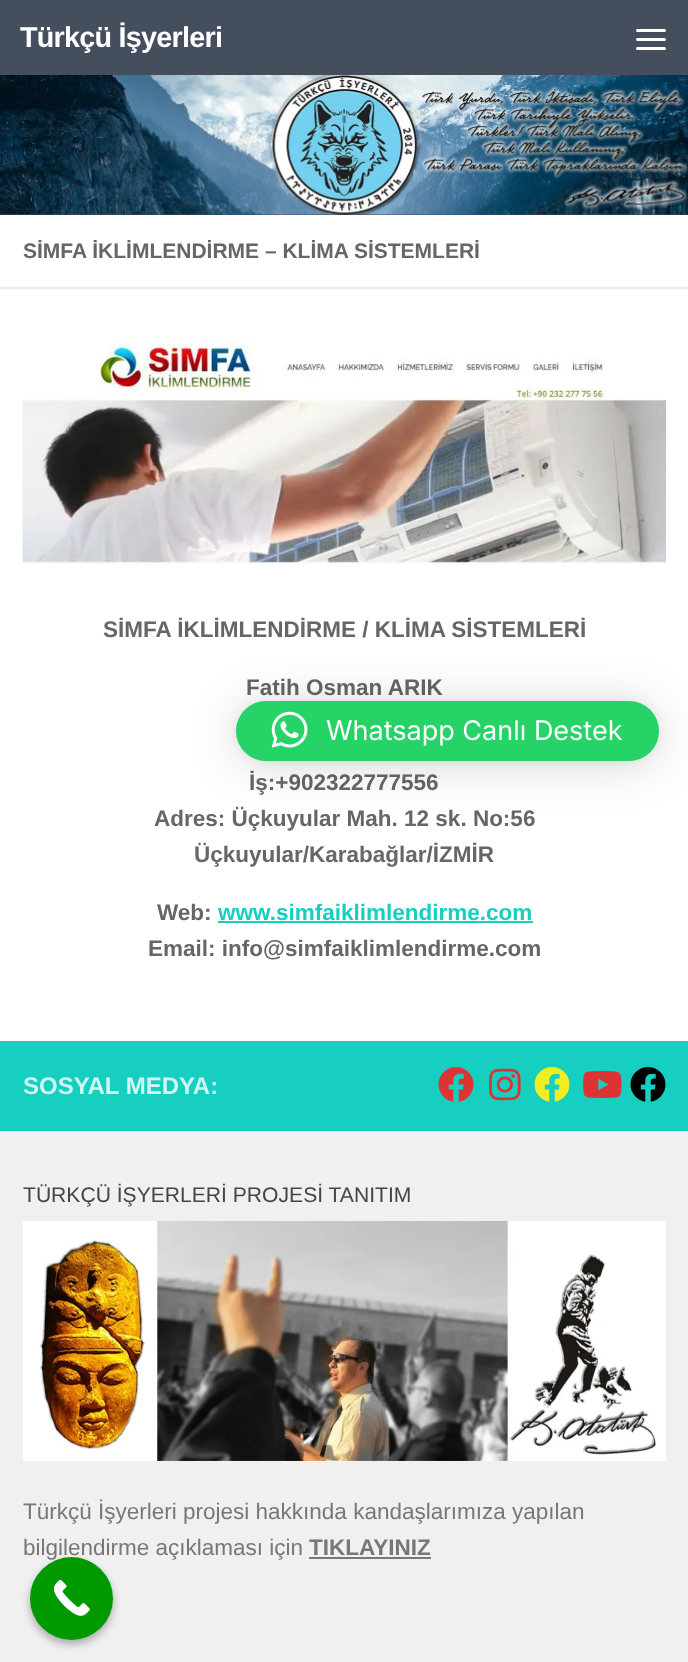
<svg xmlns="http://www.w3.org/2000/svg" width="688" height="1662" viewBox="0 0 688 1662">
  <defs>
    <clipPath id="clip1"><rect x="20" y="0" width="202" height="75"/></clipPath>
    <filter id="blur1" x="-50%" y="-200%" width="200%" height="500%"><feGaussianBlur stdDeviation="24"/></filter>
    <filter id="blur2" x="-50%" y="-200%" width="200%" height="500%"><feGaussianBlur stdDeviation="4.5"/></filter>
  </defs>
  <rect width="100%" height="100%" fill="#ffffff"/>
  <rect x="0" y="0" width="688" height="215" fill="#454e5c"/>
  <g clip-path="url(#clip1)">
    <text x="20" y="47" font-family="Liberation Sans" font-size="28.75" font-weight="bold" letter-spacing="-0.75" fill="#ffffff">Türkçü İşyerleri</text>
  </g>
  <rect x="636" y="29" width="30" height="3" rx="1.5" fill="#ffffff"/>
  <rect x="636" y="38" width="30" height="3" rx="1.5" fill="#ffffff"/>
  <rect x="636" y="47" width="30" height="3" rx="1.5" fill="#ffffff"/>
  <image x="0" y="75" width="688" height="140" href="img1.png"/>
  <rect x="0" y="287" width="688" height="2" fill="#eeeeee"/>
  <text x="23" y="258" font-family="Liberation Sans" font-size="21" font-weight="bold" fill="#666666">SİMFA İKLİMLENDİRME – KLİMA SİSTEMLERİ</text>
  <image x="22" y="338" width="644" height="228" href="img2.png"/>
  <text x="103" y="637" font-family="Liberation Sans" font-size="22.5" font-weight="bold" fill="#666666">SİMFA İKLİMLENDİRME / KLİMA SİSTEMLERİ</text>
  <text x="246" y="695" font-family="Liberation Sans" font-size="22.5" font-weight="bold" fill="#666666">Fatih Osman ARIK</text>
  <text x="249" y="790" font-family="Liberation Sans" font-size="22.5" font-weight="bold" fill="#666666">İş:+902322777556</text>
  <text x="154" y="826" font-family="Liberation Sans" font-size="22.5" font-weight="bold" fill="#666666">Adres: Üçkuyular Mah. 12 sk. No:56</text>
  <text x="194" y="862" font-family="Liberation Sans" font-size="22.5" font-weight="bold" fill="#666666">Üçkuyular/Karabağlar/İZMİR</text>
  <text x="157" y="920" font-family="Liberation Sans" font-size="22.5" font-weight="bold" fill="#666666">Web:</text>
  <text x="218" y="920" font-family="Liberation Sans" font-size="22.5" font-weight="bold" fill="#16cfc1">www.simfaiklimlendirme.com</text>
  <rect x="218" y="921" width="315" height="2" fill="#16cfc1"/>
  <text x="148" y="956" font-family="Liberation Sans" font-size="22.5" font-weight="bold" fill="#666666">Email: info@simfaiklimlendirme.com</text>
  <rect x="0" y="1131" width="688" height="531" fill="#f0f0f0"/>
  <rect x="0" y="1041" width="688" height="90" fill="#16cfc1"/>
  <text x="23" y="1094" font-family="Liberation Sans" font-size="24" font-weight="bold" fill="#d0f5f3">SOSYAL MEDYA:</text>
  <image x="438" y="1067" width="36" height="35" href="img3.png"/>
  <image x="489" y="1068" width="32" height="33" href="img4.png"/>
  <image x="534" y="1067" width="36" height="35" href="img5.png"/>
  <image x="583" y="1071" width="39" height="27" href="img6.png"/>
  <image x="630" y="1067" width="36" height="35" href="img7.png"/>
  <text x="23" y="1202" font-family="Liberation Sans" font-size="21.1" fill="#444444">TÜRKÇÜ İŞYERLERİ PROJESİ TANITIM</text>
  <image x="23" y="1221" width="643" height="240" href="img8.png"/>
  <text x="23" y="1519" font-family="Liberation Sans" font-size="22.5" fill="#777777">Türkçü İşyerleri projesi hakkında kandaşlarımıza yapılan</text>
  <text x="23" y="1555" font-family="Liberation Sans" font-size="22.5" fill="#777777">bilgilendirme açıklaması için</text>
  <text x="309" y="1555" font-family="Liberation Sans" font-size="22.5" font-weight="bold" fill="#777777">TIKLAYINIZ</text>
  <rect x="309" y="1557" width="122" height="2" fill="#777777"/>
  <rect x="236" y="704" width="423" height="60" rx="30" fill="#000000" fill-opacity="0.16" filter="url(#blur1)"/>
  <rect x="236" y="702" width="423" height="60" rx="30" fill="#000000" fill-opacity="0.06" filter="url(#blur2)"/>
  <rect x="236" y="701" width="423" height="60" rx="30" fill="#25d366"/>
  <image x="271" y="711" width="37" height="37" href="img9.png"/>
  <text x="326" y="740" font-family="Inter" font-size="27" fill="#ffffff">Whatsapp Canlı Destek</text>
  <rect x="30" y="1562" width="83" height="82" rx="41" fill="#000000" fill-opacity="0.3" filter="url(#blur2)"/>
  <circle cx="71.5" cy="1598.5" r="41.5" fill="#009900"/>
  <image x="53" y="1579" width="37" height="37" href="img10.png"/>
</svg>
